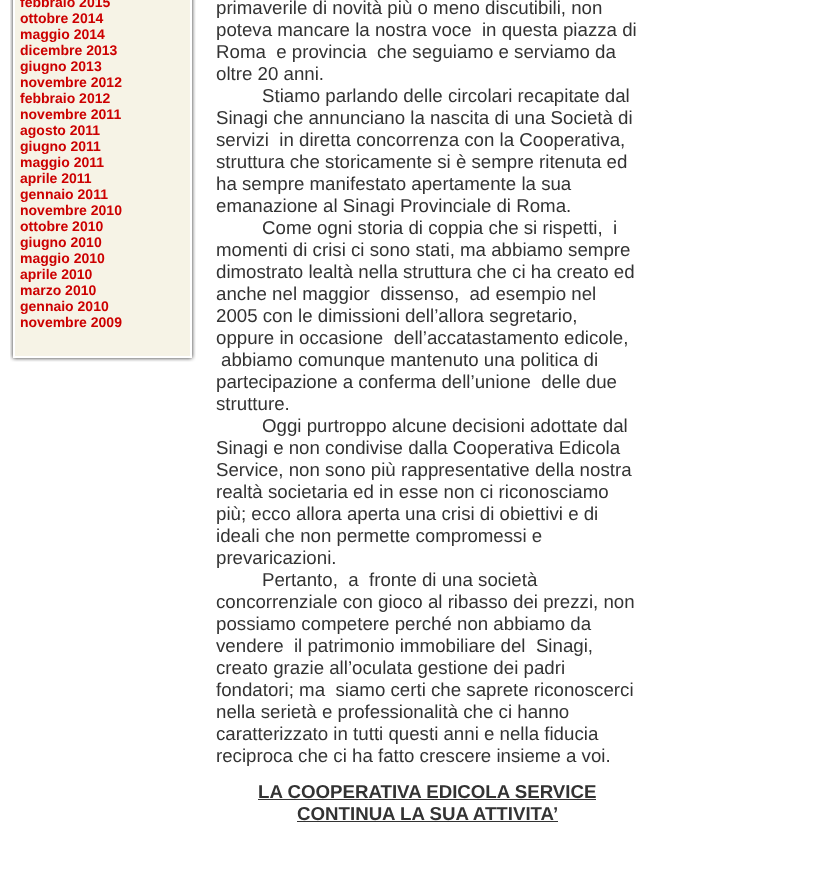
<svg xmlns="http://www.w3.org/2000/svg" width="819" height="876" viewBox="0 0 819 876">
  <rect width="100%" height="100%" fill="#ffffff"/>
  <image x="10" y="0" width="7" height="333" href="img1.png"/>
  <rect x="17" y="0" width="171" height="354" fill="#f6f3e6"/>
  <text x="20" y="7" font-family="Liberation Sans" font-size="14" font-weight="bold" fill="#cc0000">febbraio 2015</text>
  <text x="20" y="23" font-family="Liberation Sans" font-size="14" font-weight="bold" fill="#cc0000">ottobre 2014</text>
  <text x="20" y="39" font-family="Liberation Sans" font-size="14" font-weight="bold" fill="#cc0000">maggio 2014</text>
  <text x="20" y="55" font-family="Liberation Sans" font-size="14" font-weight="bold" fill="#cc0000">dicembre 2013</text>
  <text x="20" y="71" font-family="Liberation Sans" font-size="14" font-weight="bold" fill="#cc0000">giugno 2013</text>
  <text x="20" y="87" font-family="Liberation Sans" font-size="14" font-weight="bold" fill="#cc0000">novembre 2012</text>
  <text x="20" y="103" font-family="Liberation Sans" font-size="14" font-weight="bold" fill="#cc0000">febbraio 2012</text>
  <text x="20" y="119" font-family="Liberation Sans" font-size="14" font-weight="bold" fill="#cc0000">novembre 2011</text>
  <text x="20" y="135" font-family="Liberation Sans" font-size="14" font-weight="bold" fill="#cc0000">agosto 2011</text>
  <text x="20" y="151" font-family="Liberation Sans" font-size="14" font-weight="bold" fill="#cc0000">giugno 2011</text>
  <text x="20" y="167" font-family="Liberation Sans" font-size="14" font-weight="bold" fill="#cc0000">maggio 2011</text>
  <text x="20" y="183" font-family="Liberation Sans" font-size="14" font-weight="bold" fill="#cc0000">aprile 2011</text>
  <text x="20" y="199" font-family="Liberation Sans" font-size="14" font-weight="bold" fill="#cc0000">gennaio 2011</text>
  <text x="20" y="215" font-family="Liberation Sans" font-size="14" font-weight="bold" fill="#cc0000">novembre 2010</text>
  <text x="20" y="231" font-family="Liberation Sans" font-size="14" font-weight="bold" fill="#cc0000">ottobre 2010</text>
  <text x="20" y="247" font-family="Liberation Sans" font-size="14" font-weight="bold" fill="#cc0000">giugno 2010</text>
  <text x="20" y="263" font-family="Liberation Sans" font-size="14" font-weight="bold" fill="#cc0000">maggio 2010</text>
  <text x="20" y="279" font-family="Liberation Sans" font-size="14" font-weight="bold" fill="#cc0000">aprile 2010</text>
  <text x="20" y="295" font-family="Liberation Sans" font-size="14" font-weight="bold" fill="#cc0000">marzo 2010</text>
  <text x="20" y="311" font-family="Liberation Sans" font-size="14" font-weight="bold" fill="#cc0000">gennaio 2010</text>
  <text x="20" y="327" font-family="Liberation Sans" font-size="14" font-weight="bold" fill="#cc0000">novembre 2009</text>
  <image x="188" y="0" width="8" height="333" href="img2.png"/>
  <image x="10" y="333" width="7" height="21" href="img3.png"/>
  <image x="188" y="333" width="8" height="21" href="img4.png"/>
  <image x="10" y="354" width="7" height="8" href="img5.png"/>
  <image x="17" y="354" width="171" height="8" href="img6.png"/>
  <image x="188" y="354" width="8" height="8" href="img7.png"/>
  <text x="216" y="14" font-family="Liberation Sans" font-size="18.7" fill="#333333">primaverile di novità più o meno discutibili, non</text>
  <text x="216" y="36" font-family="Liberation Sans" font-size="18.7" fill="#333333" xml:space="preserve">poteva mancare la nostra voce  in questa piazza di</text>
  <text x="216" y="58" font-family="Liberation Sans" font-size="18.7" fill="#333333" xml:space="preserve">Roma  e provincia  che seguiamo e serviamo da</text>
  <text x="216" y="80" font-family="Liberation Sans" font-size="18.7" fill="#333333">oltre 20 anni.</text>
  <text x="262" y="102" font-family="Liberation Sans" font-size="18.7" fill="#333333">Stiamo parlando delle circolari recapitate dal</text>
  <text x="216" y="124" font-family="Liberation Sans" font-size="18.7" fill="#333333">Sinagi che annunciano la nascita di una Società di</text>
  <text x="216" y="146" font-family="Liberation Sans" font-size="18.7" fill="#333333" xml:space="preserve">servizi  in diretta concorrenza con la Cooperativa,</text>
  <text x="216" y="168" font-family="Liberation Sans" font-size="18.7" fill="#333333">struttura che storicamente si è sempre ritenuta ed</text>
  <text x="216" y="190" font-family="Liberation Sans" font-size="18.7" fill="#333333">ha sempre manifestato apertamente la sua</text>
  <text x="216" y="212" font-family="Liberation Sans" font-size="18.7" fill="#333333">emanazione al Sinagi Provinciale di Roma.</text>
  <text x="262" y="234" font-family="Liberation Sans" font-size="18.7" fill="#333333" xml:space="preserve">Come ogni storia di coppia che si rispetti,  i</text>
  <text x="216" y="256" font-family="Liberation Sans" font-size="18.7" fill="#333333">momenti di crisi ci sono stati, ma abbiamo sempre</text>
  <text x="216" y="278" font-family="Liberation Sans" font-size="18.7" fill="#333333">dimostrato lealtà nella struttura che ci ha creato ed</text>
  <text x="216" y="300" font-family="Liberation Sans" font-size="18.7" fill="#333333" xml:space="preserve">anche nel maggior  dissenso,  ad esempio nel</text>
  <text x="216" y="322" font-family="Liberation Sans" font-size="18.7" fill="#333333">2005 con le dimissioni dell’allora segretario,</text>
  <text x="216" y="344" font-family="Liberation Sans" font-size="18.7" fill="#333333" xml:space="preserve">oppure in occasione  dell’accatastamento edicole,</text>
  <text x="221" y="366" font-family="Liberation Sans" font-size="18.7" fill="#333333">abbiamo comunque mantenuto una politica di</text>
  <text x="216" y="388" font-family="Liberation Sans" font-size="18.7" fill="#333333" xml:space="preserve">partecipazione a conferma dell’unione  delle due</text>
  <text x="216" y="410" font-family="Liberation Sans" font-size="18.7" fill="#333333">strutture.</text>
  <text x="262" y="432" font-family="Liberation Sans" font-size="18.7" fill="#333333">Oggi purtroppo alcune decisioni adottate dal</text>
  <text x="216" y="454" font-family="Liberation Sans" font-size="18.7" fill="#333333">Sinagi e non condivise dalla Cooperativa Edicola</text>
  <text x="216" y="476" font-family="Liberation Sans" font-size="18.7" fill="#333333">Service, non sono più rappresentative della nostra</text>
  <text x="216" y="498" font-family="Liberation Sans" font-size="18.7" fill="#333333">realtà societaria ed in esse non ci riconosciamo</text>
  <text x="216" y="520" font-family="Liberation Sans" font-size="18.7" fill="#333333">più; ecco allora aperta una crisi di obiettivi e di</text>
  <text x="216" y="542" font-family="Liberation Sans" font-size="18.7" fill="#333333">ideali che non permette compromessi e</text>
  <text x="216" y="564" font-family="Liberation Sans" font-size="18.7" fill="#333333">prevaricazioni.</text>
  <text x="262" y="586" font-family="Liberation Sans" font-size="18.7" fill="#333333" xml:space="preserve">Pertanto,  a  fronte di una società</text>
  <text x="216" y="608" font-family="Liberation Sans" font-size="18.7" fill="#333333">concorrenziale con gioco al ribasso dei prezzi, non</text>
  <text x="216" y="630" font-family="Liberation Sans" font-size="18.7" fill="#333333">possiamo competere perché non abbiamo da</text>
  <text x="216" y="652" font-family="Liberation Sans" font-size="18.7" fill="#333333" xml:space="preserve">vendere  il patrimonio immobiliare del  Sinagi,</text>
  <text x="216" y="674" font-family="Liberation Sans" font-size="18.7" fill="#333333">creato grazie all’oculata gestione dei padri</text>
  <text x="216" y="696" font-family="Liberation Sans" font-size="18.7" fill="#333333" xml:space="preserve">fondatori; ma  siamo certi che saprete riconoscerci</text>
  <text x="216" y="718" font-family="Liberation Sans" font-size="18.7" fill="#333333">nella serietà e professionalità che ci hanno</text>
  <text x="216" y="740" font-family="Liberation Sans" font-size="18.7" fill="#333333">caratterizzato in tutti questi anni e nella fiducia</text>
  <text x="216" y="762" font-family="Liberation Sans" font-size="18.7" fill="#333333">reciproca che ci ha fatto crescere insieme a voi.</text>
  <text x="258" y="798" font-family="Liberation Sans" font-size="18.7" font-weight="bold" fill="#333333">LA COOPERATIVA EDICOLA SERVICE</text>
  <rect x="258" y="799" width="338" height="1" fill="#333333"/>
  <text x="297" y="820" font-family="Liberation Sans" font-size="18.7" font-weight="bold" fill="#333333">CONTINUA LA SUA ATTIVITA’</text>
  <rect x="297" y="821" width="261" height="1" fill="#333333"/>
</svg>
